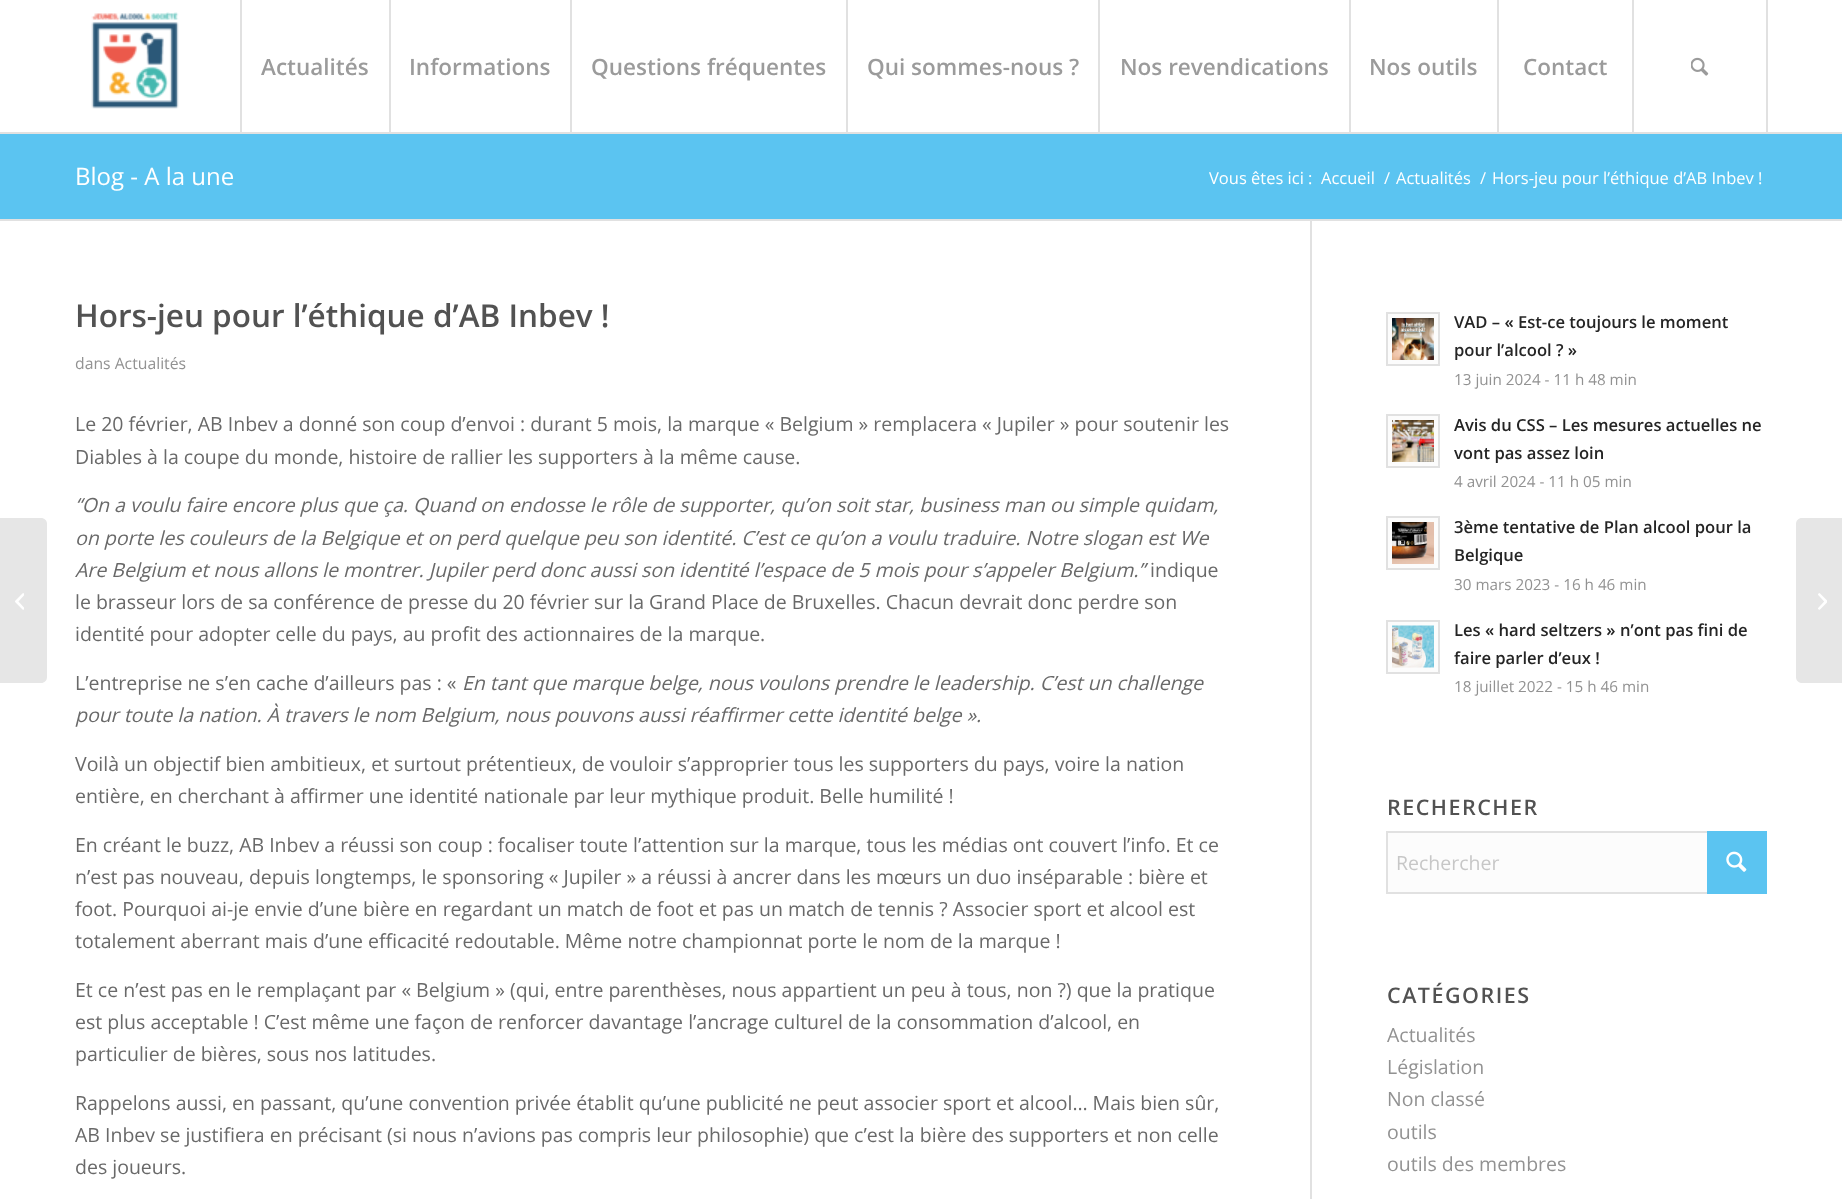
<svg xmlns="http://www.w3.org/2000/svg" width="1842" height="1199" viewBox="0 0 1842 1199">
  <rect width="100%" height="100%" fill="#ffffff"/>
  <rect x="0" y="132" width="1842" height="2" fill="#e1e1e1"/>
  <image x="91" y="12" width="88" height="97" href="img1.png"/>
  <rect x="240" y="0" width="2" height="132" fill="#e1e1e1"/>
  <text x="261" y="75" font-family="Open Sans" font-size="22.5" font-weight="600" fill="#9b9b9b">Actualités</text>
  <rect x="389" y="0" width="2" height="132" fill="#e1e1e1"/>
  <text x="409" y="75" font-family="Open Sans" font-size="22.5" font-weight="600" fill="#9b9b9b">Informations</text>
  <rect x="570" y="0" width="2" height="132" fill="#e1e1e1"/>
  <text x="591" y="75" font-family="Open Sans" font-size="22.5" font-weight="600" fill="#9b9b9b">Questions fréquentes</text>
  <rect x="846" y="0" width="2" height="132" fill="#e1e1e1"/>
  <text x="867" y="75" font-family="Open Sans" font-size="22.5" font-weight="600" fill="#9b9b9b">Qui sommes-nous ?</text>
  <rect x="1098" y="0" width="2" height="132" fill="#e1e1e1"/>
  <text x="1120" y="75" font-family="Open Sans" font-size="22.5" font-weight="600" fill="#9b9b9b">Nos revendications</text>
  <rect x="1349" y="0" width="2" height="132" fill="#e1e1e1"/>
  <text x="1369" y="75" font-family="Open Sans" font-size="22.5" font-weight="600" fill="#9b9b9b">Nos outils</text>
  <rect x="1497" y="0" width="2" height="132" fill="#e1e1e1"/>
  <text x="1523" y="75" font-family="Open Sans" font-size="22.5" font-weight="600" fill="#9b9b9b">Contact</text>
  <rect x="1766" y="0" width="2" height="132" fill="#e1e1e1"/>
  <rect x="1632" y="0" width="2" height="132" fill="#e1e1e1"/>
  <image x="1691" y="57" width="18" height="19" href="img2.png"/>
  <path d="M0 518H41C44.5 518 47 520.5 47 524V677C47 680.5 44.5 683 41 683H0Z" fill="#e6e6e6"/>
  <image x="15" y="593" width="9" height="17" href="img3.png"/>
  <rect x="0" y="134" width="1842" height="85" fill="#5bc4f1"/>
  <text x="75" y="185" font-family="Open Sans" font-size="24" fill="#ffffff">Blog - A la une</text>
  <text x="1209" y="184" font-family="Open Sans" font-size="16.5" fill="#ffffff">Vous êtes ici :</text>
  <text x="1321" y="184" font-family="Open Sans" font-size="16.5" fill="#ffffff">Accueil</text>
  <text x="1384" y="184" font-family="Open Sans" font-size="16.5" fill="#ffffff">/</text>
  <text x="1396" y="184" font-family="Open Sans" font-size="16.5" fill="#ffffff">Actualités</text>
  <text x="1480" y="184" font-family="Open Sans" font-size="16.5" fill="#ffffff">/</text>
  <text x="1492" y="184" font-family="Open Sans" font-size="16.5" fill="#ffffff">Hors-jeu pour l’éthique d’AB Inbev !</text>
  <rect x="0" y="219" width="1842" height="2" fill="#e1e1e1"/>
  <rect x="1310" y="221" width="2" height="978" fill="#e1e1e1"/>
  <text x="75" y="327" font-family="Open Sans" font-size="31.5" font-weight="600" fill="#525252">Hors-jeu pour l’éthique d’AB Inbev !</text>
  <text x="75" y="369" font-family="Open Sans" font-size="15.75" fill="#929292">dans Actualités</text>
  <text x="75" y="431" font-family="Open Sans" font-size="19.5" fill="#696969">Le 20 février, AB Inbev a donné son coup d’envoi : durant 5 mois, la marque « Belgium » remplacera « Jupiler » pour soutenir les</text>
  <text x="75" y="464" font-family="Open Sans" font-size="19.5" fill="#696969">Diables à la coupe du monde, histoire de rallier les supporters à la même cause.</text>
  <text x="75" y="512" font-family="Open Sans" font-size="19.5" font-style="italic" fill="#696969">“On a voulu faire encore plus que ça. Quand on endosse le rôle de supporter, qu’on soit star, business man ou simple quidam,</text>
  <text x="75" y="545" font-family="Open Sans" font-size="19.5" font-style="italic" fill="#696969">on porte les couleurs de la Belgique et on perd quelque peu son identité. C’est ce qu’on a voulu traduire. Notre slogan est We</text>
  <text x="75" y="577" font-family="Open Sans" font-size="19.5" font-style="italic" fill="#696969">Are Belgium et nous allons le montrer. Jupiler perd donc aussi son identité l’espace de 5 mois pour s’appeler Belgium.”</text>
  <text x="1150" y="577" font-family="Open Sans" font-size="19.5" fill="#696969">indique</text>
  <text x="75" y="609" font-family="Open Sans" font-size="19.5" fill="#696969">le brasseur lors de sa conférence de presse du 20 février sur la Grand Place de Bruxelles. Chacun devrait donc perdre son</text>
  <text x="75" y="641" font-family="Open Sans" font-size="19.5" fill="#696969">identité pour adopter celle du pays, au profit des actionnaires de la marque.</text>
  <text x="75" y="690" font-family="Open Sans" font-size="19.5" fill="#696969">L’entreprise ne s’en cache d’ailleurs pas : «</text>
  <text x="462" y="690" font-family="Open Sans" font-size="19.5" font-style="italic" fill="#696969">En tant que marque belge, nous voulons prendre le leadership. C’est un challenge</text>
  <text x="75" y="722" font-family="Open Sans" font-size="19.5" font-style="italic" fill="#696969">pour toute la nation. À travers le nom Belgium, nous pouvons aussi réaffirmer cette identité belge ».</text>
  <text x="75" y="771" font-family="Open Sans" font-size="19.5" fill="#696969">Voilà un objectif bien ambitieux, et surtout prétentieux, de vouloir s’approprier tous les supporters du pays, voire la nation</text>
  <text x="75" y="803" font-family="Open Sans" font-size="19.5" fill="#696969">entière, en cherchant à affirmer une identité nationale par leur mythique produit. Belle humilité !</text>
  <text x="75" y="852" font-family="Open Sans" font-size="19.5" fill="#696969">En créant le buzz, AB Inbev a réussi son coup : focaliser toute l’attention sur la marque, tous les médias ont couvert l’info. Et ce</text>
  <text x="75" y="884" font-family="Open Sans" font-size="19.5" fill="#696969">n’est pas nouveau, depuis longtemps, le sponsoring « Jupiler » a réussi à ancrer dans les mœurs un duo inséparable : bière et</text>
  <text x="75" y="916" font-family="Open Sans" font-size="19.5" fill="#696969">foot. Pourquoi ai-je envie d’une bière en regardant un match de foot et pas un match de tennis ? Associer sport et alcool est</text>
  <text x="75" y="948" font-family="Open Sans" font-size="19.5" fill="#696969">totalement aberrant mais d’une efficacité redoutable. Même notre championnat porte le nom de la marque !</text>
  <text x="75" y="997" font-family="Open Sans" font-size="19.5" fill="#696969">Et ce n’est pas en le remplaçant par « Belgium » (qui, entre parenthèses, nous appartient un peu à tous, non ?) que la pratique</text>
  <text x="75" y="1029" font-family="Open Sans" font-size="19.5" fill="#696969">est plus acceptable ! C’est même une façon de renforcer davantage l’ancrage culturel de la consommation d’alcool, en</text>
  <text x="75" y="1061" font-family="Open Sans" font-size="19.5" fill="#696969">particulier de bières, sous nos latitudes.</text>
  <text x="75" y="1110" font-family="Open Sans" font-size="19.5" fill="#696969">Rappelons aussi, en passant, qu’une convention privée établit qu’une publicité ne peut associer sport et alcool… Mais bien sûr,</text>
  <text x="75" y="1142" font-family="Open Sans" font-size="19.5" fill="#696969">AB Inbev se justifiera en précisant (si nous n’avions pas compris leur philosophie) que c’est la bière des supporters et non celle</text>
  <text x="75" y="1174" font-family="Open Sans" font-size="19.5" fill="#696969">des joueurs.</text>
  <rect x="1387" y="313" width="52" height="52" fill="#fcfcfc" stroke="#e1e1e1" stroke-width="2"/>
  <image x="1392" y="318" width="42" height="42" href="img4.png"/>
  <text x="1454" y="328" font-family="Open Sans" font-size="16.6" font-weight="600" fill="#252525">VAD – « Est-ce toujours le moment</text>
  <text x="1454" y="356" font-family="Open Sans" font-size="16.6" font-weight="600" fill="#252525">pour l’alcool ? »</text>
  <text x="1454" y="385" font-family="Open Sans" font-size="15.25" fill="#929292">13 juin 2024 - 11 h 48 min</text>
  <rect x="1387" y="415" width="52" height="52" fill="#fcfcfc" stroke="#e1e1e1" stroke-width="2"/>
  <image x="1392" y="420" width="42" height="42" href="img5.png"/>
  <text x="1454" y="431" font-family="Open Sans" font-size="16.6" font-weight="600" fill="#252525">Avis du CSS – Les mesures actuelles ne</text>
  <text x="1454" y="459" font-family="Open Sans" font-size="16.6" font-weight="600" fill="#252525">vont pas assez loin</text>
  <text x="1454" y="487" font-family="Open Sans" font-size="15.25" fill="#929292">4 avril 2024 - 11 h 05 min</text>
  <rect x="1387" y="517" width="52" height="52" fill="#fcfcfc" stroke="#e1e1e1" stroke-width="2"/>
  <image x="1392" y="522" width="42" height="42" href="img6.png"/>
  <text x="1454" y="533" font-family="Open Sans" font-size="16.6" font-weight="600" fill="#252525">3ème tentative de Plan alcool pour la</text>
  <text x="1454" y="561" font-family="Open Sans" font-size="16.6" font-weight="600" fill="#252525">Belgique</text>
  <text x="1454" y="590" font-family="Open Sans" font-size="15.25" fill="#929292">30 mars 2023 - 16 h 46 min</text>
  <rect x="1387" y="621" width="52" height="52" fill="#fcfcfc" stroke="#e1e1e1" stroke-width="2"/>
  <image x="1392" y="625" width="42" height="43" href="img7.png"/>
  <text x="1454" y="636" font-family="Open Sans" font-size="16.6" font-weight="600" fill="#252525">Les « hard seltzers » n’ont pas fini de</text>
  <text x="1454" y="664" font-family="Open Sans" font-size="16.6" font-weight="600" fill="#252525">faire parler d’eux !</text>
  <text x="1454" y="692" font-family="Open Sans" font-size="15.25" fill="#929292">18 juillet 2022 - 15 h 46 min</text>
  <text x="1387" y="815" font-family="Open Sans" font-size="21.5" font-weight="600" letter-spacing="1.5" fill="#525252">RECHERCHER</text>
  <rect x="1388" y="833" width="319" height="59" fill="#fcfcfc"/>
  <rect x="1387" y="832" width="379" height="61" fill="none" stroke="#e1e1e1" stroke-width="2"/>
  <rect x="1707" y="831" width="60" height="63" fill="#5bc4f1"/>
  <text x="1396" y="870" font-family="Open Sans" font-size="19.5" fill="#c7c7c7">Rechercher</text>
  <image x="1726" y="851" width="21" height="21" href="img8.png"/>
  <text x="1387" y="1003" font-family="Open Sans" font-size="21.5" font-weight="600" letter-spacing="1.5" fill="#525252">CATÉGORIES</text>
  <text x="1387" y="1042" font-family="Open Sans" font-size="19.5" fill="#929292">Actualités</text>
  <text x="1387" y="1074" font-family="Open Sans" font-size="19.5" fill="#929292">Législation</text>
  <text x="1387" y="1106" font-family="Open Sans" font-size="19.5" fill="#929292">Non classé</text>
  <text x="1387" y="1139" font-family="Open Sans" font-size="19.5" fill="#929292">outils</text>
  <text x="1387" y="1171" font-family="Open Sans" font-size="19.5" fill="#929292">outils des membres</text>
  <path d="M1802 518H1842V683H1802C1798.5 683 1796 680.5 1796 677V524C1796 520.5 1798.5 518 1802 518Z" fill="#e6e6e6"/>
  <image x="1818" y="593" width="9" height="17" href="img9.png"/>
</svg>
